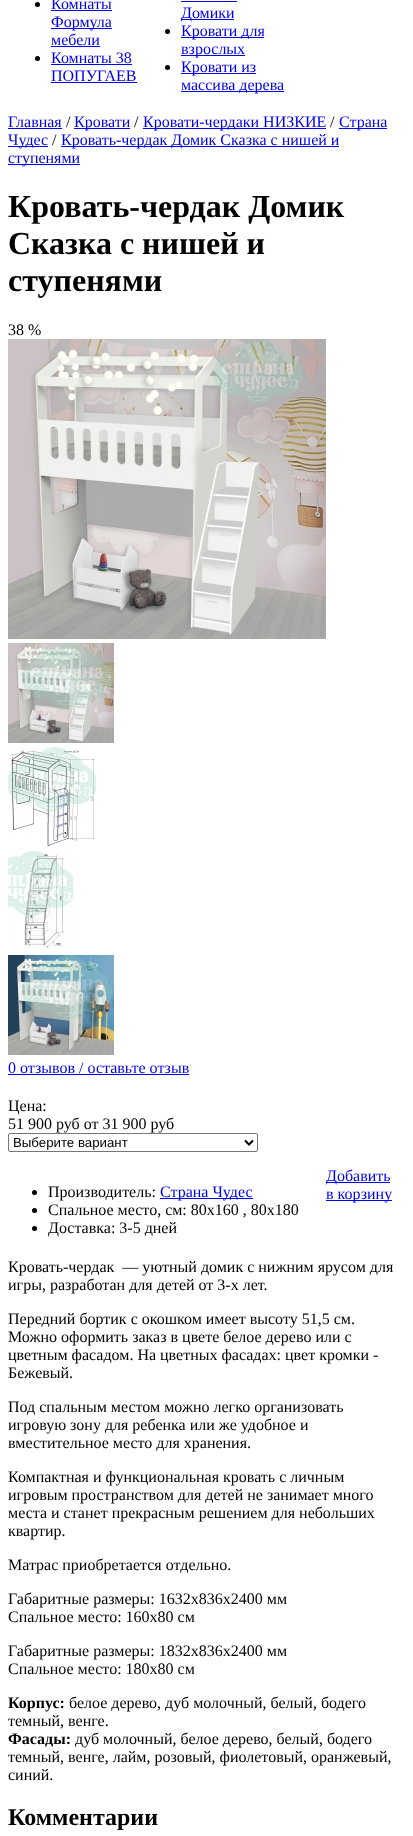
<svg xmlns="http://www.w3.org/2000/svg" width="413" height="1836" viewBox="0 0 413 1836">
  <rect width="100%" height="100%" fill="#ffffff"/>
  <circle cx="37.5" cy="4.5" r="2.5" fill="#000000"/>
  <text x="51" y="9" font-family="Liberation Serif" font-size="16" fill="#0000ee">Комнаты</text>
  <rect x="51" y="10" width="61" height="1" fill="#0000ee"/>
  <rect x="51" y="28" width="61" height="1" fill="#0000ee"/>
  <text x="51" y="27" font-family="Liberation Serif" font-size="16" fill="#0000ee">Формула</text>
  <text x="51" y="45" font-family="Liberation Serif" font-size="16" fill="#0000ee">мебели</text>
  <rect x="51" y="46" width="49" height="1" fill="#0000ee"/>
  <circle cx="37.5" cy="58.5" r="2.5" fill="#000000"/>
  <text x="51" y="63" font-family="Liberation Serif" font-size="16" fill="#0000ee">Комнаты 38</text>
  <rect x="51" y="64" width="81" height="1" fill="#0000ee"/>
  <text x="51" y="81" font-family="Liberation Serif" font-size="16" fill="#0000ee">ПОПУГАЕВ</text>
  <rect x="51" y="82" width="86" height="1" fill="#0000ee"/>
  <rect x="181" y="19" width="53" height="1" fill="#0000ee"/>
  <text x="181" y="18" font-family="Liberation Serif" font-size="16" fill="#0000ee">Домики</text>
  <rect x="181" y="1" width="56" height="1" fill="#0000ee"/>
  <circle cx="167.5" cy="31.5" r="2.5" fill="#000000"/>
  <rect x="181" y="37" width="83" height="1" fill="#0000ee"/>
  <text x="181" y="36" font-family="Liberation Serif" font-size="16" fill="#0000ee">Кровати для</text>
  <rect x="181" y="55" width="64" height="1" fill="#0000ee"/>
  <text x="181" y="54" font-family="Liberation Serif" font-size="16" fill="#0000ee">взрослых</text>
  <circle cx="167.5" cy="67.5" r="2.5" fill="#000000"/>
  <rect x="181" y="73" width="75" height="1" fill="#0000ee"/>
  <text x="181" y="72" font-family="Liberation Serif" font-size="16" fill="#0000ee">Кровати из</text>
  <rect x="181" y="91" width="103" height="1" fill="#0000ee"/>
  <text x="181" y="90" font-family="Liberation Serif" font-size="16" fill="#0000ee">массива дерева</text>
  <text x="8" y="127" font-family="Liberation Serif" font-size="16" fill="#0000ee">Главная</text>
  <rect x="8" y="128" width="54" height="1" fill="#0000ee"/>
  <text x="66" y="127" font-family="Liberation Serif" font-size="16" fill="#000000">/</text>
  <rect x="74" y="128" width="56" height="1" fill="#0000ee"/>
  <text x="74" y="127" font-family="Liberation Serif" font-size="16" fill="#0000ee">Кровати</text>
  <text x="134" y="127" font-family="Liberation Serif" font-size="16" fill="#000000">/</text>
  <rect x="143" y="128" width="183" height="1" fill="#0000ee"/>
  <text x="143" y="127" font-family="Liberation Serif" font-size="16" fill="#0000ee">Кровати-чердаки НИЗКИЕ</text>
  <text x="330" y="127" font-family="Liberation Serif" font-size="16" fill="#000000">/</text>
  <rect x="339" y="128" width="48" height="1" fill="#0000ee"/>
  <text x="339" y="127" font-family="Liberation Serif" font-size="16" fill="#0000ee">Страна</text>
  <rect x="8" y="146" width="40" height="1" fill="#0000ee"/>
  <text x="8" y="145" font-family="Liberation Serif" font-size="16" fill="#0000ee">Чудес</text>
  <text x="52" y="145" font-family="Liberation Serif" font-size="16" fill="#000000">/</text>
  <rect x="61" y="146" width="278" height="1" fill="#0000ee"/>
  <text x="61" y="145" font-family="Liberation Serif" font-size="16" fill="#0000ee">Кровать-чердак Домик Сказка с нишей и</text>
  <rect x="8" y="164" width="72" height="1" fill="#0000ee"/>
  <text x="8" y="163" font-family="Liberation Serif" font-size="16" fill="#0000ee">ступенями</text>
  <text x="8" y="217" font-family="Liberation Serif" font-size="32" font-weight="bold" fill="#000000">Кровать-чердак Домик</text>
  <text x="8" y="254" font-family="Liberation Serif" font-size="32" font-weight="bold" fill="#000000">Сказка с нишей и</text>
  <text x="8" y="291" font-family="Liberation Serif" font-size="32" font-weight="bold" fill="#000000">ступенями</text>
  <text x="8" y="335" font-family="Liberation Serif" font-size="16" fill="#000000">38 %</text>
  <image x="8" y="339" width="318" height="300" href="img1.png"/>
  <image x="8" y="643" width="106" height="100" href="img2.png"/>
  <image x="8" y="747" width="88" height="99" href="img3.png"/>
  <image x="8" y="851" width="65" height="98" href="img4.png"/>
  <image x="8" y="955" width="106" height="100" href="img5.png"/>
  <text x="8" y="1073" font-family="Liberation Serif" font-size="16" fill="#0000ee">0 отзывов / оставьте отзыв</text>
  <rect x="8" y="1074" width="181" height="1" fill="#0000ee"/>
  <text x="8" y="1111" font-family="Liberation Serif" font-size="16" fill="#000000">Цена:</text>
  <text x="8" y="1129" font-family="Liberation Serif" font-size="16" fill="#000000">51 900 руб от 31 900 руб</text>
  <rect x="8.5" y="1133.5" width="249" height="18" rx="1.5" fill="none" stroke="#767676"/>
  <path d="M245 1140.5L249 1144.5L253 1140.5" fill="none" stroke="#000000" stroke-width="2"/>
  <text x="13" y="1147" font-family="Liberation Sans" font-size="13.25" fill="#000000">Выберите вариант</text>
  <rect x="326" y="1182" width="64" height="1" fill="#0000ee"/>
  <text x="326" y="1181" font-family="Liberation Serif" font-size="16" fill="#0000ee">Добавить</text>
  <rect x="326" y="1200" width="66" height="1" fill="#0000ee"/>
  <text x="326" y="1199" font-family="Liberation Serif" font-size="16" fill="#0000ee">в корзину</text>
  <circle cx="34.5" cy="1192.5" r="2.5" fill="#000000"/>
  <text x="48" y="1197" font-family="Liberation Serif" font-size="16" fill="#000000">Производитель:</text>
  <rect x="160" y="1198" width="93" height="1" fill="#0000ee"/>
  <text x="160" y="1197" font-family="Liberation Serif" font-size="16" fill="#0000ee">Страна Чудес</text>
  <circle cx="34.5" cy="1210.5" r="2.5" fill="#000000"/>
  <text x="48" y="1215" font-family="Liberation Serif" font-size="16" fill="#000000">Спальное место, см: 80х160 , 80x180</text>
  <circle cx="34.5" cy="1228.5" r="2.5" fill="#000000"/>
  <text x="48" y="1233" font-family="Liberation Serif" font-size="16" fill="#000000">Доставка: 3-5 дней</text>
  <text x="8" y="1272" font-family="Liberation Serif" font-size="16" fill="#000000" xml:space="preserve">Кровать-чердак  — уютный домик с нижним ярусом для</text>
  <text x="8" y="1290" font-family="Liberation Serif" font-size="16" fill="#000000">игры, разработан для детей от 3-х лет.</text>
  <text x="8" y="1324" font-family="Liberation Serif" font-size="16" fill="#000000">Передний бортик с окошком имеет высоту 51,5 см.</text>
  <text x="8" y="1342" font-family="Liberation Serif" font-size="16" fill="#000000">Можно оформить заказ в цвете белое дерево или с</text>
  <text x="8" y="1360" font-family="Liberation Serif" font-size="16" fill="#000000">цветным фасадом. На цветных фасадах: цвет кромки -</text>
  <text x="8" y="1378" font-family="Liberation Serif" font-size="16" fill="#000000">Бежевый.</text>
  <text x="8" y="1412" font-family="Liberation Serif" font-size="16" fill="#000000">Под спальным местом можно легко организовать</text>
  <text x="8" y="1430" font-family="Liberation Serif" font-size="16" fill="#000000">игровую зону для ребенка или же удобное и</text>
  <text x="8" y="1448" font-family="Liberation Serif" font-size="16" fill="#000000">вместительное место для хранения.</text>
  <text x="8" y="1482" font-family="Liberation Serif" font-size="16" fill="#000000">Компактная и функциональная кровать с личным</text>
  <text x="8" y="1500" font-family="Liberation Serif" font-size="16" fill="#000000">игровым пространством для детей не занимает много</text>
  <text x="8" y="1518" font-family="Liberation Serif" font-size="16" fill="#000000">места и станет прекрасным решением для небольших</text>
  <text x="8" y="1536" font-family="Liberation Serif" font-size="16" fill="#000000">квартир.</text>
  <text x="8" y="1570" font-family="Liberation Serif" font-size="16" fill="#000000">Матрас приобретается отдельно.</text>
  <text x="8" y="1604" font-family="Liberation Serif" font-size="16" fill="#000000">Габаритные размеры: 1632х836х2400 мм</text>
  <text x="8" y="1622" font-family="Liberation Serif" font-size="16" fill="#000000">Спальное место: 160х80 см</text>
  <text x="8" y="1656" font-family="Liberation Serif" font-size="16" fill="#000000">Габаритные размеры: 1832х836х2400 мм</text>
  <text x="8" y="1674" font-family="Liberation Serif" font-size="16" fill="#000000">Спальное место: 180х80 см</text>
  <text x="8" y="1708" font-family="Liberation Serif" font-size="16" font-weight="bold" fill="#000000">Корпус:</text>
  <text x="69" y="1708" font-family="Liberation Serif" font-size="16" fill="#000000">белое дерево, дуб молочный, белый, бодего</text>
  <text x="8" y="1726" font-family="Liberation Serif" font-size="16" fill="#000000">темный, венге.</text>
  <text x="8" y="1744" font-family="Liberation Serif" font-size="16" font-weight="bold" fill="#000000">Фасады:</text>
  <text x="75" y="1744" font-family="Liberation Serif" font-size="16" fill="#000000">дуб молочный, белое дерево, белый, бодего</text>
  <text x="8" y="1762" font-family="Liberation Serif" font-size="16" fill="#000000">темный, венге, лайм, розовый, фиолетовый, оранжевый,</text>
  <text x="8" y="1780" font-family="Liberation Serif" font-size="16" fill="#000000">синий.</text>
  <text x="8" y="1825" font-family="Liberation Serif" font-size="24" font-weight="bold" fill="#000000">Комментарии</text>
</svg>
